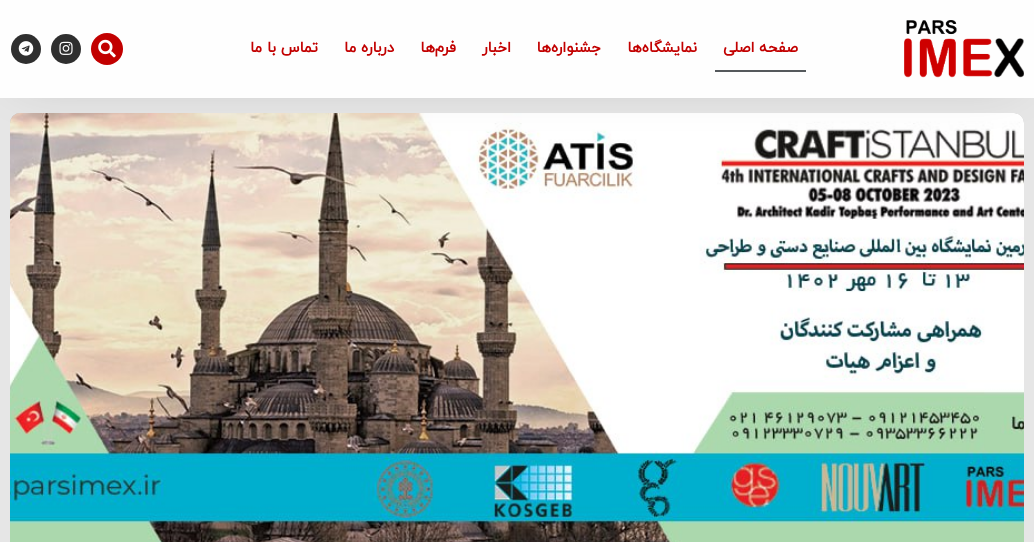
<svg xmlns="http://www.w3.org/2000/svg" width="1034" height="542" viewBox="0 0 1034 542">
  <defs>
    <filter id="blur1" x="-50%" y="-200%" width="200%" height="500%"><feGaussianBlur stdDeviation="25.5"/></filter>
  </defs>
  <rect width="100%" height="100%" fill="#e6e6e6"/>
  <rect x="10" y="113" width="1014" height="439" rx="10" fill="#bbbbbb"/>
  <image x="10" y="113" width="1014" height="429" href="img5.png"/>
  <rect x="22" y="22" width="990" height="54" fill="#000000" fill-opacity="0.23" filter="url(#blur1)"/>
  <rect x="0" y="0" width="1034" height="98" fill="#fefefe"/>
  <image x="904" y="20" width="120" height="58" href="img1.png"/>
  <text x="798" y="52" font-family="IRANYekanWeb" font-size="15" font-weight="bold" direction="rtl" fill="#c20000">صفحه اصلی</text>
  <rect x="715" y="70" width="91" height="2" fill="#55595c"/>
  <text x="697" y="52" font-family="IRANYekanWeb" font-size="15" font-weight="bold" direction="rtl" fill="#c20000">نمایشگاه‌ها</text>
  <text x="601" y="52" font-family="IRANYekanWeb" font-size="15" font-weight="bold" direction="rtl" fill="#c20000">جشنواره‌ها</text>
  <text x="511" y="52" font-family="IRANYekanWeb" font-size="15" font-weight="bold" direction="rtl" fill="#c20000">اخبار</text>
  <text x="456" y="52" font-family="IRANYekanWeb" font-size="15" font-weight="bold" direction="rtl" fill="#c20000">فرم‌ها</text>
  <text x="394" y="52" font-family="IRANYekanWeb" font-size="15" font-weight="bold" direction="rtl" fill="#c20000">درباره ما</text>
  <text x="318" y="52" font-family="IRANYekanWeb" font-size="15" font-weight="bold" direction="rtl" fill="#c20000">تماس با ما</text>
  <circle cx="107" cy="49" r="16" fill="#c20000"/>
  <image x="98" y="39" width="18" height="19" href="img2.png"/>
  <circle cx="66" cy="49" r="15" fill="#2f2f2f"/>
  <image x="59" y="41" width="14" height="14" href="img3.png"/>
  <circle cx="26" cy="49" r="15" fill="#2f2f2f"/>
  <image x="18" y="41" width="16" height="15" href="img4.png"/>
</svg>
